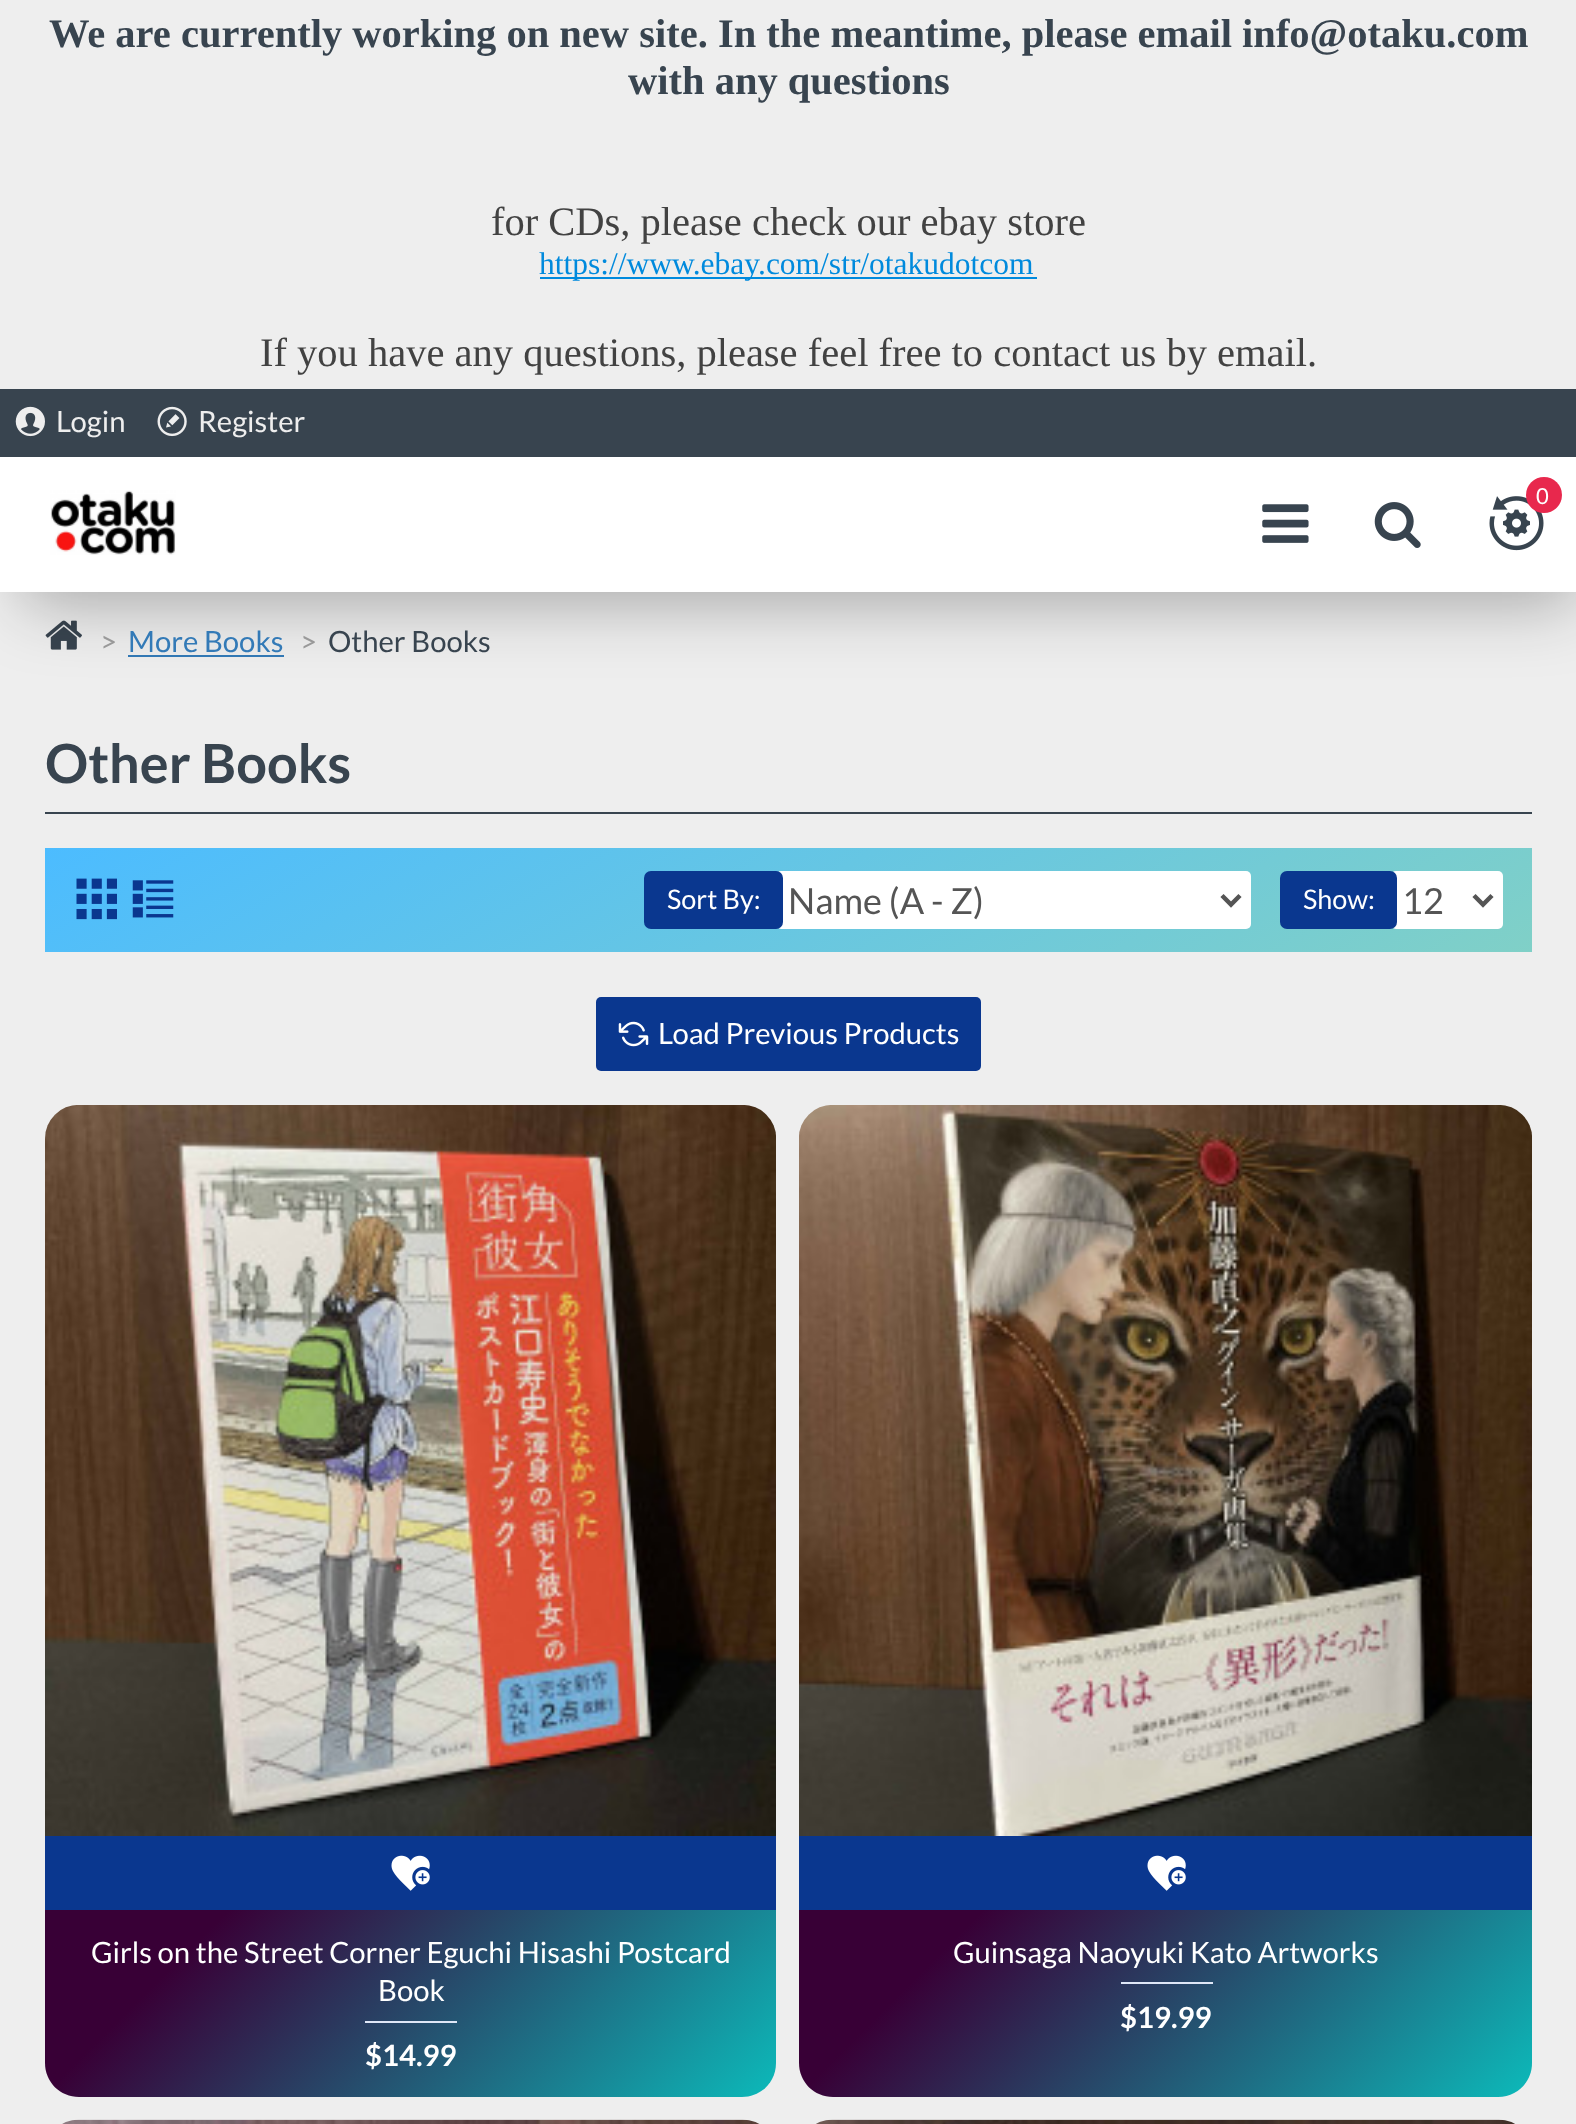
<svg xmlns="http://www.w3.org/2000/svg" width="1576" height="2124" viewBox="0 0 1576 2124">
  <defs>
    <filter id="blur1" x="-50%" y="-200%" width="200%" height="500%"><feGaussianBlur stdDeviation="34"/></filter>
    <linearGradient id="g1" gradientUnits="userSpaceOnUse" x1="580" y1="539" x2="997" y2="1261"><stop offset="0" stop-color="#4cbcff"/><stop offset="1" stop-color="#80d0c7"/></linearGradient>
    <linearGradient id="g2" gradientUnits="userSpaceOnUse" x1="659" y1="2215" x2="163" y2="1718"><stop offset="0" stop-color="#0cbaba"/><stop offset="0.74" stop-color="#380036"/></linearGradient>
    <linearGradient id="g3" gradientUnits="userSpaceOnUse" x1="1414" y1="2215" x2="917" y2="1718"><stop offset="0" stop-color="#0cbaba"/><stop offset="0.74" stop-color="#380036"/></linearGradient>
  </defs>
  <rect width="100%" height="100%" fill="#eeeeee"/>
  <text x="49" y="47" font-family="Liberation Serif" font-size="40.5" font-weight="bold" fill="#38444f">We are currently working on new site. In the meantime, please email info@otaku.com</text>
  <text x="628" y="94" font-family="Liberation Serif" font-size="40.5" font-weight="bold" fill="#38444f">with any questions</text>
  <text x="491" y="235" font-family="Liberation Serif" font-size="40.5" fill="#424242">for CDs, please check our ebay store</text>
  <rect x="540" y="277" width="497" height="2" fill="#008add"/>
  <text x="539" y="274" font-family="Liberation Serif" font-size="31.5" fill="#008add">https://www.ebay.com/str/otakudotcom</text>
  <text x="260" y="366" font-family="Liberation Serif" font-size="40.5" fill="#424242">If you have any questions, please feel free to contact us by email.</text>
  <image x="45" y="620" width="37" height="30" href="img7.png"/>
  <rect x="128" y="655" width="156" height="2" fill="#337ab7"/>
  <rect x="23" y="491" width="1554" height="112" fill="#000000" fill-opacity="0.3" filter="url(#blur1)"/>
  <rect x="0" y="389" width="1576" height="68" fill="#38444f"/>
  <image x="15" y="406" width="30" height="31" href="img1.png"/>
  <text x="56" y="432" font-family="Lato" font-size="29.25" fill="#eeeeee">Login</text>
  <image x="157" y="406" width="30" height="31" href="img2.png"/>
  <text x="198" y="432" font-family="Lato" font-size="29.25" fill="#eeeeee">Register</text>
  <rect x="0" y="457" width="1576" height="135" fill="#ffffff"/>
  <image x="50" y="490" width="126" height="65" href="img3.png"/>
  <image x="1489" y="496" width="55" height="55" href="img4.png"/>
  <circle cx="1544" cy="495" r="18" fill="#e8284d"/>
  <text x="1536" y="504" font-family="Lato" font-size="22" fill="#ffffff">0</text>
  <image x="1262" y="504" width="47" height="39" href="img5.png"/>
  <image x="1374" y="502" width="47" height="46" href="img6.png"/>
  <text x="100" y="652" font-family="Lato" font-size="29.25" fill="#999999">&gt;</text>
  <text x="128" y="652" font-family="Lato" font-size="29.25" fill="#337ab7">More Books</text>
  <text x="300" y="652" font-family="Lato" font-size="29.25" fill="#999999">&gt;</text>
  <text x="328" y="652" font-family="Lato" font-size="29.25" fill="#38444f">Other Books</text>
  <rect x="45" y="812" width="1487" height="2" fill="#38444f"/>
  <text x="45" y="783" font-family="Lato" font-size="54" font-weight="bold" fill="#38444f">Other Books</text>
  <rect x="45" y="848" width="1487" height="104" fill="url(#g1)"/>
  <image x="76" y="878" width="41" height="42" href="img8.png"/>
  <image x="132" y="880" width="42" height="38" href="img9.png"/>
  <rect x="776" y="871" width="475" height="58" rx="5" fill="#ffffff"/>
  <rect x="644" y="871" width="139" height="58" rx="7" fill="#0a378f"/>
  <text x="667" y="909" font-family="Lato" font-size="27" fill="#ffffff">Sort By:</text>
  <path d="M1222 895.5L1231 904.5L1240 895.5" fill="none" stroke="#555555" stroke-width="4.5"/>
  <text x="788" y="914" font-family="Lato" font-size="36" fill="#555555">Name (A - Z)</text>
  <rect x="1391" y="871" width="112" height="58" rx="5" fill="#ffffff"/>
  <rect x="1280" y="871" width="117" height="58" rx="7" fill="#0a378f"/>
  <text x="1303" y="909" font-family="Lato" font-size="27" fill="#ffffff">Show:</text>
  <path d="M1474 895.5L1483 904.5L1492 895.5" fill="none" stroke="#555555" stroke-width="4.5"/>
  <text x="1402" y="914" font-family="Lato" font-size="36" fill="#555555">12</text>
  <rect x="596" y="997" width="385" height="74" rx="5" fill="#0a378f"/>
  <image x="618" y="1021" width="31" height="26" href="img10.png"/>
  <text x="658" y="1044" font-family="Lato" font-size="29.25" fill="#ffffff">Load Previous Products</text>
  <image x="45" y="1105" width="731" height="731" href="img11.png"/>
  <path d="M45 1836H776V2063C776 2082 761 2097 742 2097H79C60 2097 45 2082 45 2063Z" fill="url(#g2)"/>
  <rect x="45" y="1836" width="731" height="74" fill="#0a378f"/>
  <image x="391" y="1855" width="39" height="36" href="img12.png"/>
  <text x="91" y="1963" font-family="Lato" font-size="29.25" fill="#ffffff">Girls on the Street Corner Eguchi Hisashi Postcard</text>
  <text x="378" y="2001" font-family="Lato" font-size="29.25" fill="#ffffff">Book</text>
  <rect x="365" y="2021" width="92" height="2" fill="#dfe7f7"/>
  <text x="365" y="2066" font-family="Lato" font-size="29.25" font-weight="bold" fill="#ffffff">$14.99</text>
  <image x="799" y="1105" width="733" height="731" href="img13.png"/>
  <path d="M799 1836H1532V2063C1532 2082 1517 2097 1498 2097H833C814 2097 799 2082 799 2063Z" fill="url(#g3)"/>
  <rect x="799" y="1836" width="733" height="74" fill="#0a378f"/>
  <image x="1147" y="1855" width="39" height="36" href="img12.png"/>
  <text x="953" y="1963" font-family="Lato" font-size="29.25" fill="#ffffff">Guinsaga Naoyuki Kato Artworks</text>
  <rect x="1121" y="1982" width="92" height="2" fill="#dfe7f7"/>
  <text x="1120" y="2028" font-family="Lato" font-size="29.25" font-weight="bold" fill="#ffffff">$19.99</text>
  <image x="62" y="2119" width="698" height="5" href="img14.png"/>
  <image x="816" y="2119" width="699" height="5" href="img15.png"/>
</svg>
